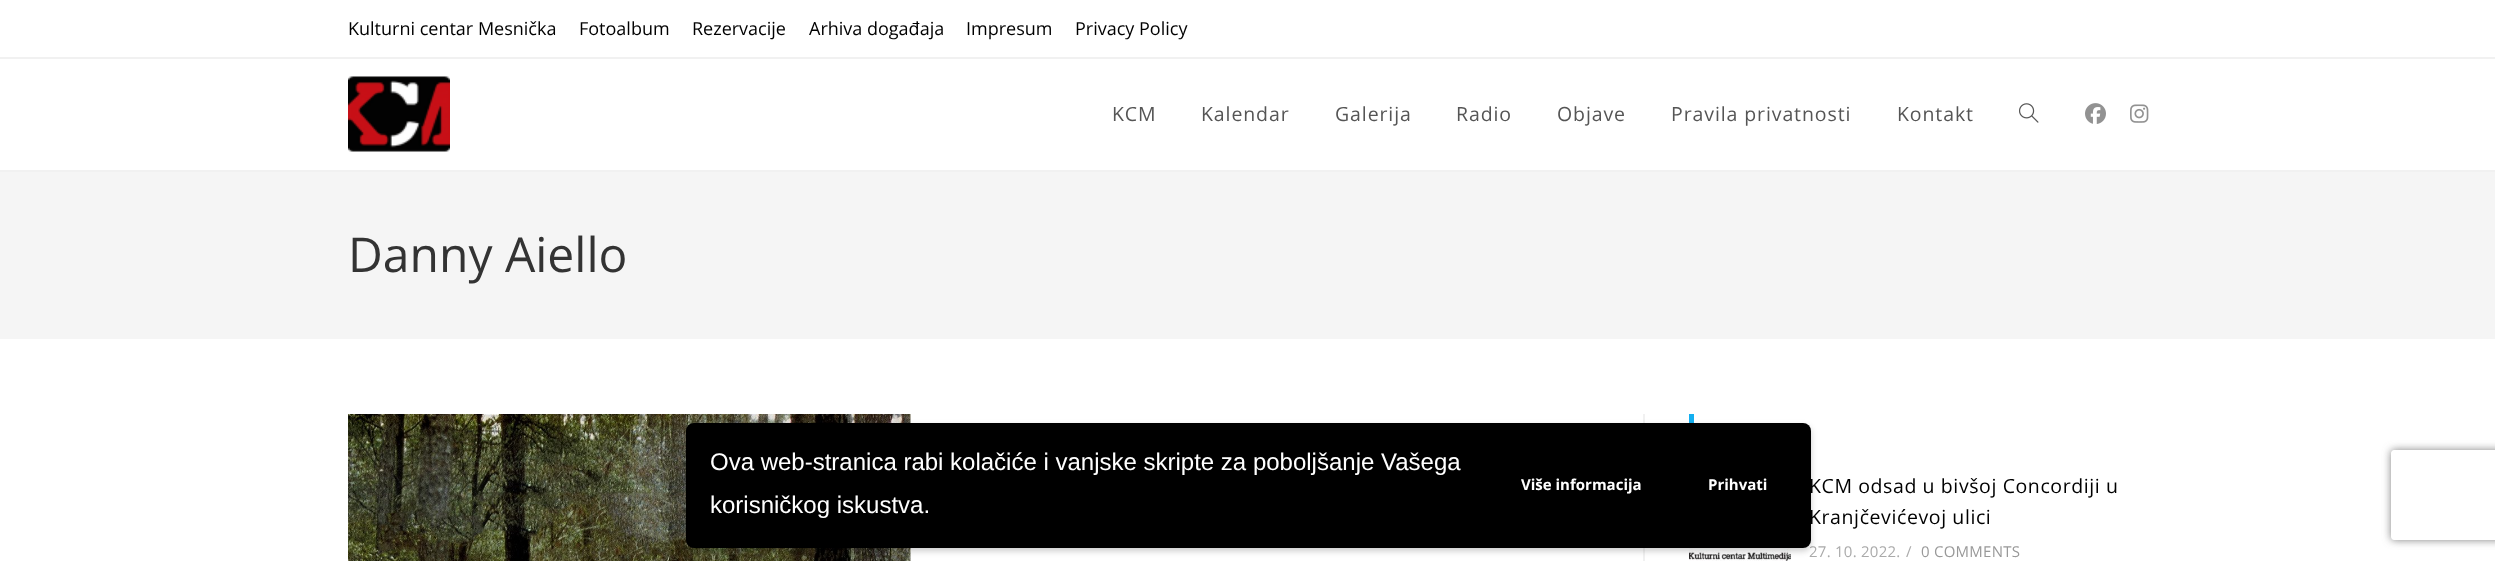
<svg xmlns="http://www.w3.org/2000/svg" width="2495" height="561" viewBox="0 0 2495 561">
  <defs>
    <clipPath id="clip1"><path d="M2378 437H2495V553H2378ZM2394 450H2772C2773.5 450 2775 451.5 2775 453V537C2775 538.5 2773.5 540 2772 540H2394C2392.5 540 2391 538.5 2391 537V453C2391 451.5 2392.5 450 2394 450Z" clip-rule="evenodd"/></clipPath>
    <filter id="blur1" x="-50%" y="-200%" width="200%" height="500%"><feGaussianBlur stdDeviation="4"/></filter>
    <filter id="blur2" x="-50%" y="-200%" width="200%" height="500%"><feGaussianBlur stdDeviation="3"/></filter>
  </defs>
  <rect width="100%" height="100%" fill="#ffffff"/>
  <rect x="0" y="57" width="2495" height="2" fill="#f1f1f1"/>
  <text x="348" y="35" font-family="Open Sans" font-size="18" fill="#000000">Kulturni centar Mesnička</text>
  <text x="579" y="35" font-family="Open Sans" font-size="18" fill="#000000">Fotoalbum</text>
  <text x="692" y="35" font-family="Open Sans" font-size="18" fill="#000000">Rezervacije</text>
  <text x="809" y="35" font-family="Open Sans" font-size="18" fill="#000000">Arhiva događaja</text>
  <text x="966" y="35" font-family="Open Sans" font-size="18" fill="#000000">Impresum</text>
  <text x="1075" y="35" font-family="Open Sans" font-size="18" fill="#000000">Privacy Policy</text>
  <rect x="0" y="170" width="2495" height="2" fill="#f1f1f1"/>
  <image x="348" y="76" width="102" height="76" href="img1.png"/>
  <text x="1112" y="121" font-family="Open Sans" font-size="19.5" letter-spacing="0.9" fill="#555555">KCM</text>
  <text x="1201" y="121" font-family="Open Sans" font-size="19.5" letter-spacing="0.9" fill="#555555">Kalendar</text>
  <text x="1335" y="121" font-family="Open Sans" font-size="19.5" letter-spacing="0.9" fill="#555555">Galerija</text>
  <text x="1456" y="121" font-family="Open Sans" font-size="19.5" letter-spacing="0.9" fill="#555555">Radio</text>
  <text x="1557" y="121" font-family="Open Sans" font-size="19.5" letter-spacing="0.9" fill="#555555">Objave</text>
  <text x="1671" y="121" font-family="Open Sans" font-size="19.5" letter-spacing="0.9" fill="#555555">Pravila privatnosti</text>
  <text x="1897" y="121" font-family="Open Sans" font-size="19.5" letter-spacing="0.9" fill="#555555">Kontakt</text>
  <image x="2019" y="103" width="20" height="20" href="img2.png"/>
  <image x="2085" y="103" width="21" height="21" href="img3.png"/>
  <image x="2130" y="104" width="19" height="19" href="img4.png"/>
  <rect x="0" y="172" width="2495" height="167" fill="#f5f5f5"/>
  <text x="348" y="272" font-family="Open Sans" font-size="48" fill="#333333">Danny Aiello</text>
  <rect x="1643" y="414" width="2" height="147" fill="#f1f1f1"/>
  <image x="348" y="414" width="563" height="147" href="img5.png"/>
  <rect x="1689" y="414" width="5" height="9" fill="#13aff0"/>
  <image x="1689" y="548" width="102" height="13" href="img6.png"/>
  <text x="1809" y="493" font-family="Open Sans" font-size="19.5" letter-spacing="0.6" fill="#000000">KCM odsad u bivšoj Concordiji u</text>
  <text x="1809" y="524" font-family="Open Sans" font-size="19.5" letter-spacing="0.6" fill="#000000">Kranjčevićevoj ulici</text>
  <text x="1809" y="557" font-family="Open Sans" font-size="15" letter-spacing="0.25" fill="#aaaaaa">27. 10. 2022.</text>
  <text x="1906" y="557" font-family="Open Sans" font-size="15" letter-spacing="0.25" fill="#aaaaaa">/</text>
  <text x="1921" y="557" font-family="Open Sans" font-size="15" letter-spacing="0.25" fill="#999999">0 COMMENTS</text>
  <g clip-path="url(#clip1)">
    <rect x="2391" y="450" width="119" height="90" rx="3" fill="#808080" filter="url(#blur1)"/>
  </g>
  <rect x="686" y="426" width="1125" height="125" rx="8" fill="#000000" fill-opacity="0.2" filter="url(#blur2)"/>
  <rect x="686" y="423" width="1125" height="125" rx="8" fill="#000000"/>
  <text x="710" y="470" font-family="Liberation Sans" font-size="24" fill="#ffffff">Ova web-stranica rabi kolačiće i vanjske skripte za poboljšanje Vašega</text>
  <text x="710" y="513" font-family="Liberation Sans" font-size="24" fill="#ffffff">korisničkog iskustva.</text>
  <text x="1521" y="490" font-family="Open Sans" font-size="15" font-weight="bold" fill="#ffffff">Više informacija</text>
  <text x="1708" y="490" font-family="Open Sans" font-size="15" font-weight="bold" fill="#ffffff">Prihvati</text>
</svg>
